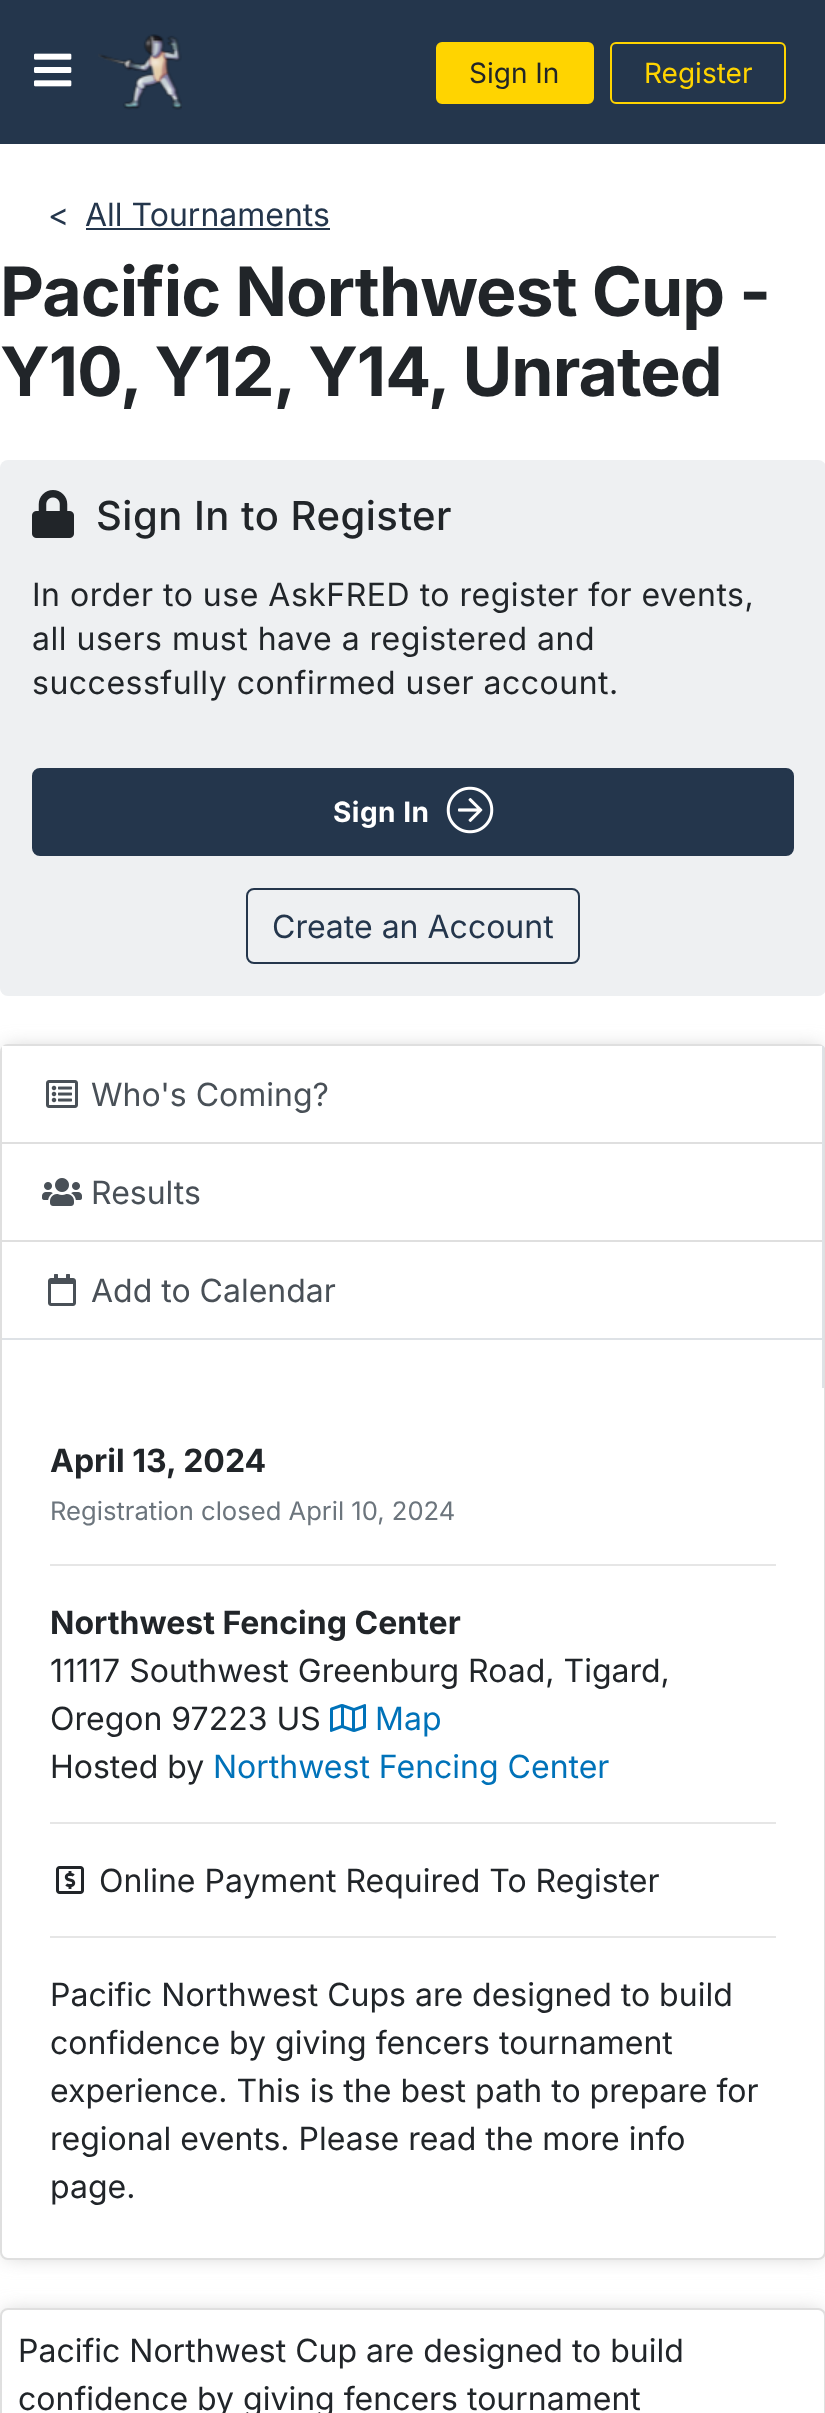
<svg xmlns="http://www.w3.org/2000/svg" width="825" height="2413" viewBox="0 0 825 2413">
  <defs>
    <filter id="blur1" x="-50%" y="-200%" width="200%" height="500%"><feGaussianBlur stdDeviation="10"/></filter>
  </defs>
  <rect width="100%" height="100%" fill="#ffffff"/>
  <rect x="0" y="0" width="825" height="144" fill="#24364c"/>
  <image x="34" y="53" width="38" height="34" href="img1.png"/>
  <image x="98" y="34" width="84" height="76" href="img2.png"/>
  <rect x="437" y="43" width="156" height="60" rx="5" fill="#ffd400" stroke="#ffd400" stroke-width="2"/>
  <text x="469" y="83" font-family="Inter" font-size="28" fill="#212529">Sign In</text>
  <rect x="611" y="43" width="174" height="60" rx="5" fill="none" stroke="#ffd400" stroke-width="2"/>
  <text x="644" y="83" font-family="Inter" font-size="28" fill="#ffd400">Register</text>
  <text x="48" y="226" font-family="Inter" font-size="32" fill="#24364c">&lt;</text>
  <text x="85" y="226" font-family="Inter" font-size="32" fill="#24364c">All Tournaments</text>
  <rect x="86" y="228" width="244" height="2" fill="#24364c"/>
  <text x="0" y="316" font-family="Inter" font-size="68" font-weight="bold" letter-spacing="-1" fill="#212529">Pacific Northwest Cup -</text>
  <text x="0" y="396" font-family="Inter" font-size="68" font-weight="bold" letter-spacing="-1" fill="#212529">Y10, Y12, Y14, Unrated</text>
  <rect x="0" y="460" width="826" height="536" rx="8" fill="#eef0f2"/>
  <image x="32" y="490" width="42" height="48" href="img3.png"/>
  <text x="96" y="530" font-family="Inter" font-size="40" font-weight="500" letter-spacing="0.5" fill="#212529">Sign In to Register</text>
  <text x="32" y="606" font-family="Inter" font-size="32" letter-spacing="0.5" fill="#212529">In order to use AskFRED to register for events,</text>
  <text x="32" y="650" font-family="Inter" font-size="32" letter-spacing="0.5" fill="#212529">all users must have a registered and</text>
  <text x="32" y="694" font-family="Inter" font-size="32" letter-spacing="0.5" fill="#212529">successfully confirmed user account.</text>
  <rect x="33" y="769" width="760" height="86" rx="7" fill="#24364c" stroke="#24364c" stroke-width="2"/>
  <text x="333" y="822" font-family="Inter" font-size="28" font-weight="bold" letter-spacing="0.5" fill="#ffffff">Sign In</text>
  <image x="446" y="786" width="48" height="48" href="img4.png"/>
  <rect x="247" y="889" width="332" height="74" rx="7" fill="none" stroke="#24364c" stroke-width="2"/>
  <text x="272" y="938" font-family="Inter" font-size="32" fill="#24364c">Create an Account</text>
  <rect x="4" y="1048" width="818" height="1208" rx="4" fill="#cccccc" filter="url(#blur1)"/>
  <rect x="1" y="1045" width="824" height="1214" rx="7" fill="#ffffff" stroke="#dfdfdf" stroke-width="2"/>
  <rect x="822" y="1046" width="2" height="342" fill="#dee2e6"/>
  <rect x="2" y="1046" width="820" height="5" fill="#ffffff"/>
  <image x="46" y="1080" width="32" height="28" href="img5.png"/>
  <text x="91" y="1106" font-family="Inter" font-size="32" fill="#495057">Who's Coming?</text>
  <rect x="2" y="1142" width="820" height="2" fill="#dfdfdf"/>
  <image x="42" y="1178" width="40" height="28" href="img6.png"/>
  <text x="91" y="1204" font-family="Inter" font-size="32" fill="#495057">Results</text>
  <rect x="2" y="1240" width="820" height="2" fill="#dfdfdf"/>
  <rect x="2" y="1338" width="820" height="2" fill="#dee2e6"/>
  <image x="48" y="1274" width="28" height="32" href="img7.png"/>
  <text x="91" y="1302" font-family="Inter" font-size="32" fill="#495057">Add to Calendar</text>
  <text x="50" y="1472" font-family="Inter" font-size="32" font-weight="bold" fill="#212529">April 13, 2024</text>
  <text x="50" y="1520" font-family="Inter" font-size="25.6" fill="#6c757d">Registration closed April 10, 2024</text>
  <rect x="50" y="1564" width="726" height="2" fill="#e6e6e6"/>
  <text x="50" y="1634" font-family="Inter" font-size="32" font-weight="bold" fill="#212529">Northwest Fencing Center</text>
  <text x="50" y="1682" font-family="Inter" font-size="32" fill="#212529">11117 Southwest Greenburg Road, Tigard,</text>
  <text x="50" y="1730" font-family="Inter" font-size="32" fill="#212529">Oregon 97223 US</text>
  <image x="330" y="1704" width="36" height="28" href="img8.png"/>
  <text x="375" y="1730" font-family="Inter" font-size="32" fill="#0072b9">Map</text>
  <text x="50" y="1778" font-family="Inter" font-size="32" fill="#212529">Hosted by</text>
  <text x="213" y="1778" font-family="Inter" font-size="32" fill="#0072b9">Northwest Fencing Center</text>
  <rect x="50" y="1822" width="726" height="2" fill="#e6e6e6"/>
  <image x="56" y="1866" width="28" height="28" href="img9.png"/>
  <text x="99" y="1892" font-family="Inter" font-size="32" fill="#212529">Online Payment Required To Register</text>
  <rect x="50" y="1936" width="726" height="2" fill="#e6e6e6"/>
  <text x="50" y="2006" font-family="Inter" font-size="32" fill="#212529">Pacific Northwest Cups are designed to build</text>
  <text x="50" y="2054" font-family="Inter" font-size="32" fill="#212529">confidence by giving fencers tournament</text>
  <text x="50" y="2102" font-family="Inter" font-size="32" fill="#212529">experience. This is the best path to prepare for</text>
  <text x="50" y="2150" font-family="Inter" font-size="32" fill="#212529">regional events. Please read the more info</text>
  <text x="50" y="2198" font-family="Inter" font-size="32" fill="#212529">page.</text>
  <rect x="4" y="2312" width="818" height="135" rx="4" fill="#cccccc" filter="url(#blur1)"/>
  <rect x="1" y="2309" width="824" height="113" rx="7" fill="#ffffff" stroke="#dfdfdf" stroke-width="2"/>
  <text x="18" y="2362" font-family="Inter" font-size="32" fill="#212529">Pacific Northwest Cup are designed to build</text>
  <text x="18" y="2410" font-family="Inter" font-size="32" fill="#212529">confidence by giving fencers tournament</text>
</svg>
